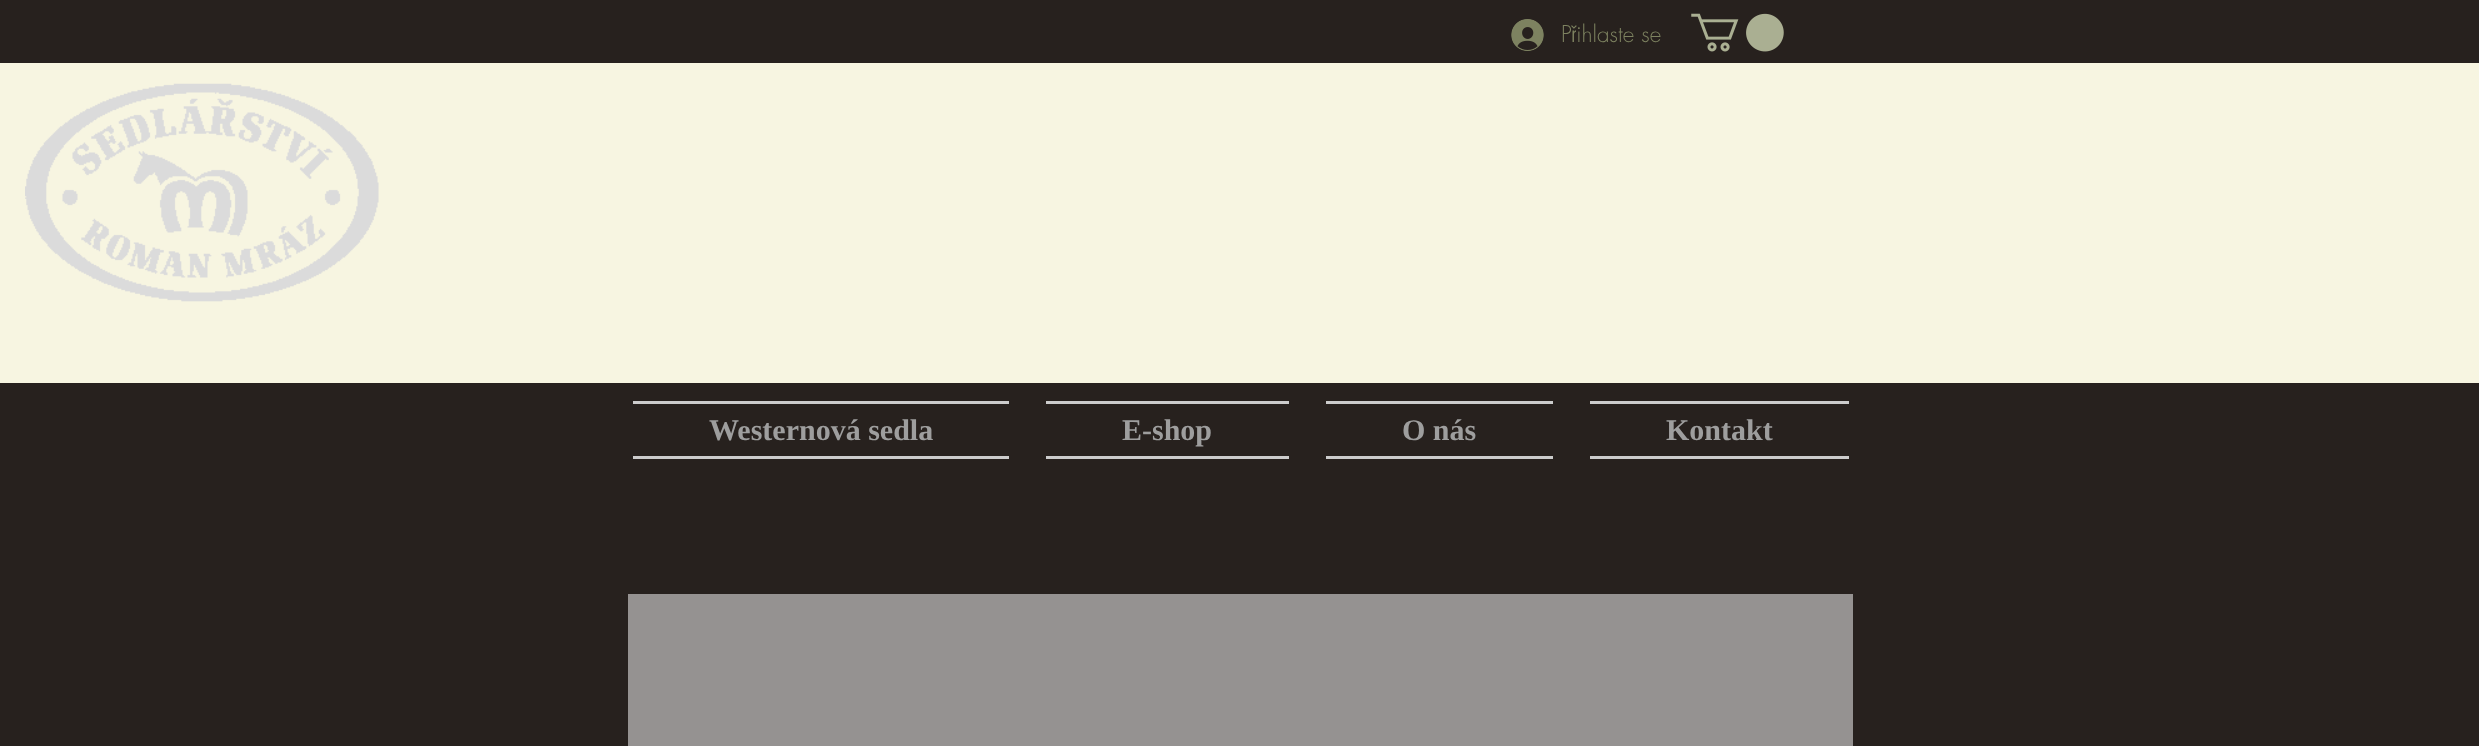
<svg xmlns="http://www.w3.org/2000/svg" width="2479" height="746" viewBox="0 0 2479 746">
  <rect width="100%" height="100%" fill="#27211e"/>
  <image x="1511" y="19" width="33" height="32" href="img1.png"/>
  <text x="1561" y="42" font-family="futura" font-size="22.5" font-weight="300" fill="#7d8260">Přihlaste se</text>
  <image x="1691" y="13" width="93" height="39" href="img2.png"/>
  <rect x="0" y="63" width="2479" height="320" fill="#f7f5e1"/>
  <image x="25" y="83" width="354" height="219" href="img3.png"/>
  <rect x="633" y="401" width="376" height="3" fill="#cccccc"/>
  <rect x="633" y="456" width="376" height="3" fill="#cccccc"/>
  <text x="709" y="440" font-family="Liberation Serif" font-size="30" font-weight="bold" fill="#9e9e9e">Westernová sedla</text>
  <rect x="1046" y="401" width="243" height="3" fill="#cccccc"/>
  <rect x="1046" y="456" width="243" height="3" fill="#cccccc"/>
  <text x="1122" y="440" font-family="Liberation Serif" font-size="30" font-weight="bold" fill="#9e9e9e">E-shop</text>
  <rect x="1326" y="401" width="227" height="3" fill="#cccccc"/>
  <rect x="1326" y="456" width="227" height="3" fill="#cccccc"/>
  <text x="1402" y="440" font-family="Liberation Serif" font-size="30" font-weight="bold" fill="#9e9e9e">O nás</text>
  <rect x="1590" y="401" width="259" height="3" fill="#cccccc"/>
  <rect x="1590" y="456" width="259" height="3" fill="#cccccc"/>
  <text x="1666" y="440" font-family="Liberation Serif" font-size="30" font-weight="bold" fill="#9e9e9e">Kontakt</text>
  <rect x="628" y="594" width="1225" height="152" fill="#959291"/>
</svg>
